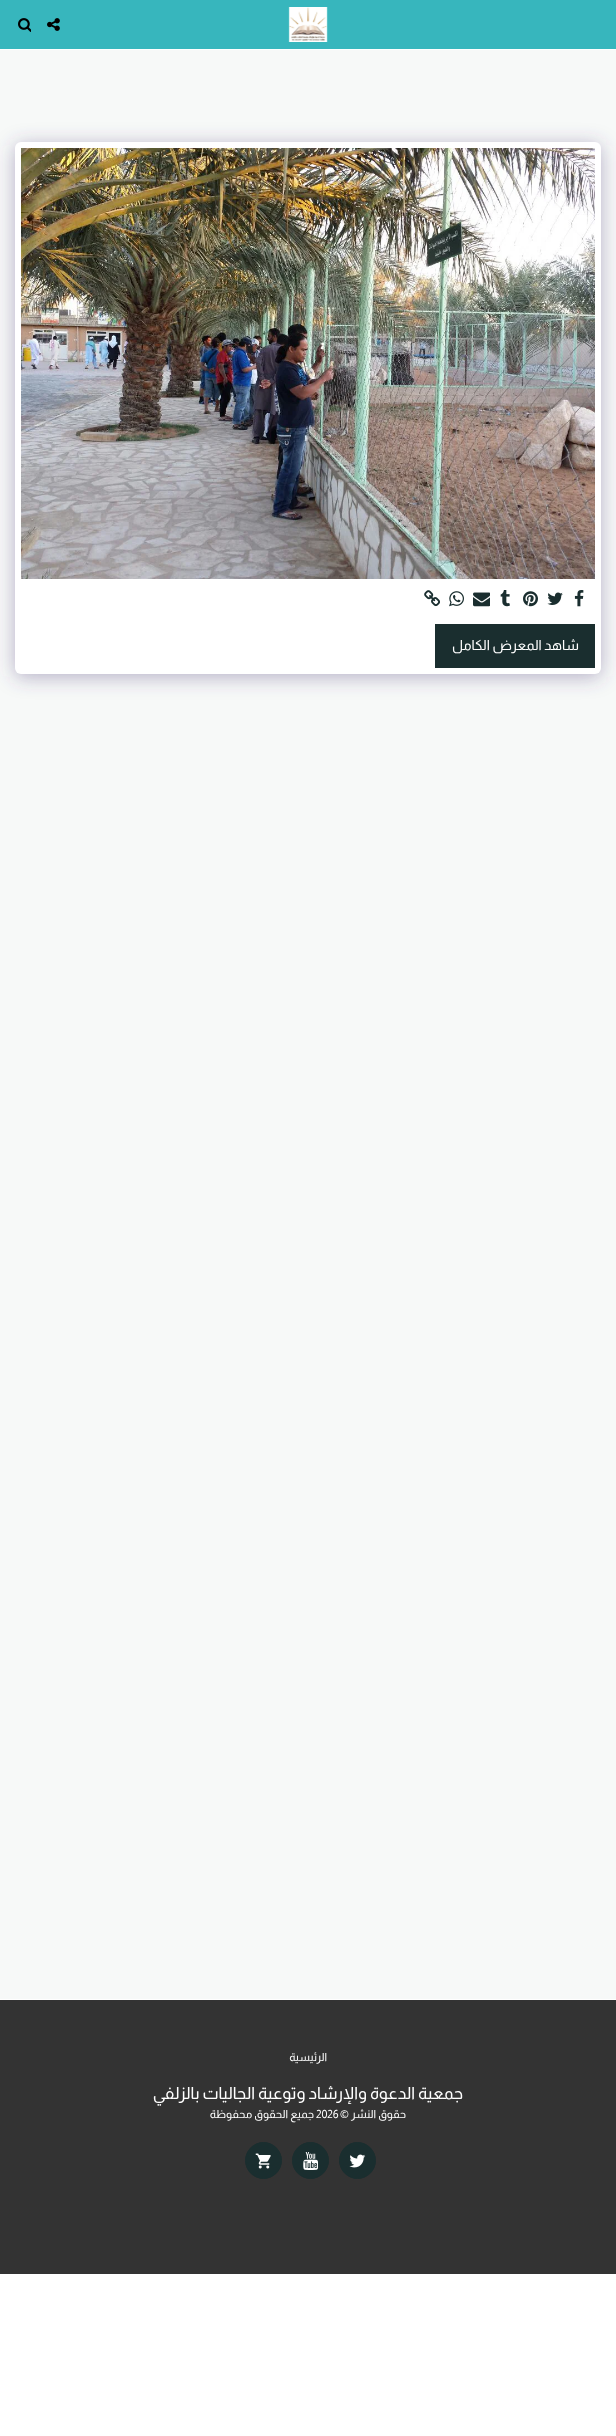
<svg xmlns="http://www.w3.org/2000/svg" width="616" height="2436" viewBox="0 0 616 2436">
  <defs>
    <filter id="blur1" x="-50%" y="-200%" width="200%" height="500%"><feGaussianBlur stdDeviation="10"/></filter>
  </defs>
  <rect width="100%" height="100%" fill="#ffffff"/>
  <rect x="0" y="0" width="616" height="49" fill="#37b6bd"/>
  <image x="288" y="7" width="40" height="35" href="img1.png"/>
  <image x="47" y="18" width="13" height="13" href="img2.png"/>
  <image x="18" y="18" width="13" height="14" href="img3.png"/>
  <rect x="0" y="50" width="616" height="1949" fill="#f7f9f8"/>
  <rect x="15" y="145" width="586" height="532" rx="6" fill="#4d3f7a" fill-opacity="0.4" filter="url(#blur1)"/>
  <rect x="15" y="142" width="586" height="532" rx="6" fill="#ffffff"/>
  <image x="21" y="148" width="574" height="431" href="img4.png"/>
  <image x="574" y="590" width="10" height="17" href="img5.png"/>
  <image x="547" y="592" width="16" height="13" href="img6.png"/>
  <image x="523" y="591" width="15" height="16" href="img7.png"/>
  <image x="500" y="590" width="10" height="17" href="img8.png"/>
  <image x="473" y="592" width="17" height="15" href="img9.png"/>
  <image x="449" y="591" width="15" height="16" href="img10.png"/>
  <image x="424" y="590" width="16" height="17" href="img11.png"/>
  <rect x="435" y="624" width="160" height="44" fill="#1a2e2f"/>
  <text x="579" y="650" font-family="Almarai" font-size="14" direction="rtl" fill="#ffffff">شاهد المعرض الكامل</text>
  <rect x="0" y="2000" width="616" height="274" fill="#333333"/>
  <text x="327" y="2061" font-family="Almarai" font-size="11.25" direction="rtl" fill="#ffffff">الرئيسية</text>
  <text x="463" y="2099" font-family="Almarai" font-size="16.75" direction="rtl" fill="#ffffff">جمعية الدعوة والإرشاد وتوعية الجاليات بالزلفي</text>
  <text x="406" y="2118" font-family="Almarai" font-size="11.25" direction="rtl" fill="#ffffff">حقوق النشر ©</text>
  <text x="316" y="2118" font-family="Almarai" font-size="11.25" fill="#ffffff">2026</text>
  <text x="314" y="2118" font-family="Almarai" font-size="11.25" direction="rtl" fill="#ffffff">جميع الحقوق محفوظة</text>
  <circle cx="357.5" cy="2160.5" r="18" fill="#1a2e2f" stroke="#1a2e2f"/>
  <image x="349" y="2154" width="17" height="14" href="img12.png"/>
  <circle cx="310.5" cy="2160.5" r="18" fill="#1a2e2f" stroke="#1a2e2f"/>
  <image x="303" y="2152" width="15" height="18" href="img13.png"/>
  <circle cx="263.5" cy="2160.5" r="18" fill="#1a2e2f" stroke="#1a2e2f"/>
  <image x="255" y="2153" width="16" height="16" href="img14.png"/>
</svg>
